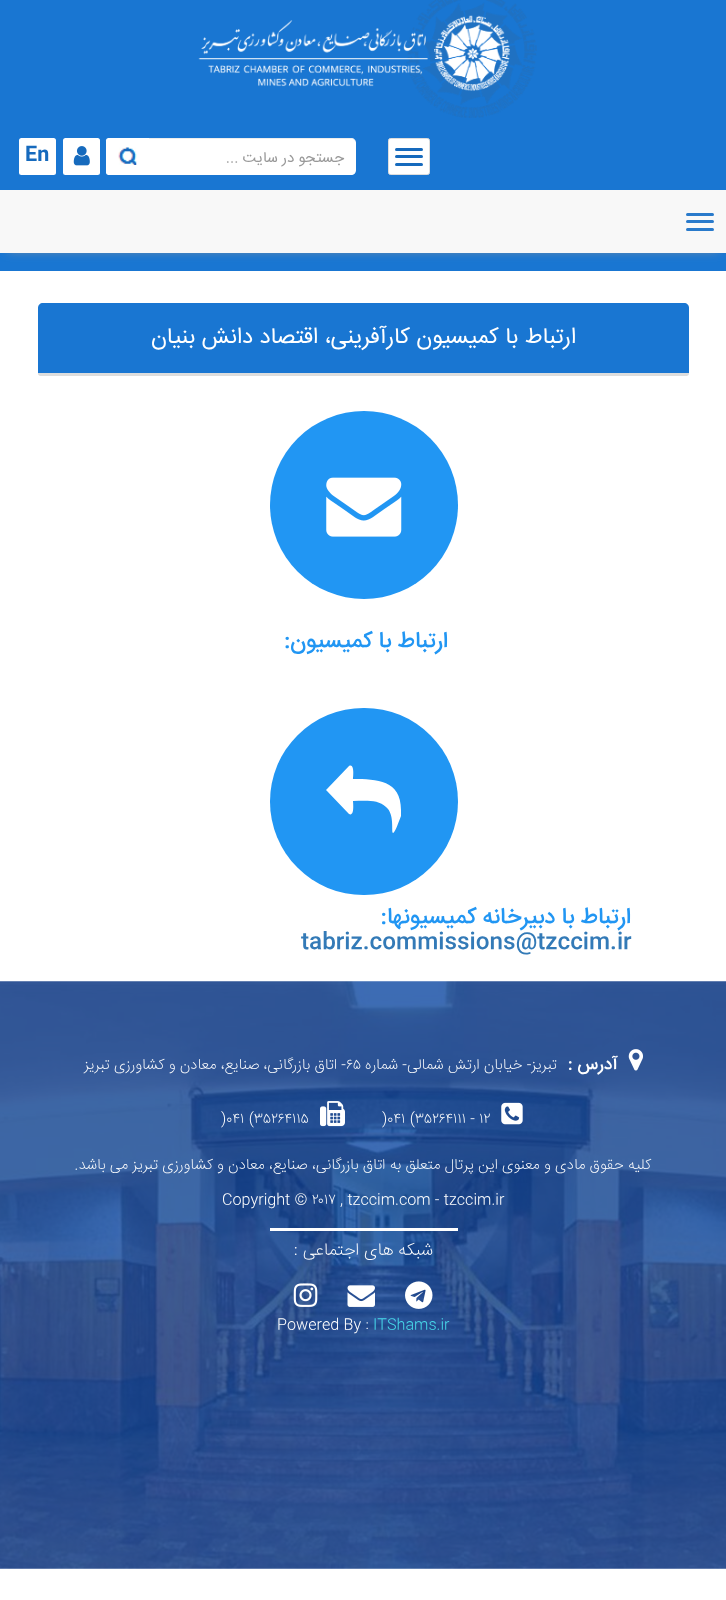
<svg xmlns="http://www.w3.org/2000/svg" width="726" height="1600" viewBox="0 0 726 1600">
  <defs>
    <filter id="blur1" x="-50%" y="-200%" width="200%" height="500%"><feGaussianBlur stdDeviation="5.5"/></filter>
  </defs>
  <rect width="100%" height="100%" fill="#ffffff"/>
  <rect x="0" y="0" width="726" height="271" fill="#1976d2"/>
  <image x="198" y="0" width="339" height="118" href="img1.png"/>
  <rect x="388.5" y="138.5" width="41" height="36" rx="2" fill="#ffffff" stroke="#dddddd"/>
  <rect x="395" y="148" width="28" height="3" rx="1.5" fill="#166abd"/>
  <rect x="395" y="155" width="28" height="3" rx="1.5" fill="#166abd"/>
  <rect x="395" y="163" width="28" height="3" rx="1.5" fill="#166abd"/>
  <path d="M149 138H351C354 138 356 140 356 143V170C356 173 354 175 351 175H149Z" fill="#ffffff"/>
  <path d="M149 139H351C354 139 356 141 356 144C356 141 355 139 352 138H149Z" fill="#000000" fill-opacity="0.07"/>
  <text x="344" y="162" font-family="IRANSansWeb" font-size="15" direction="rtl" fill="#999999">جستجو در سایت ...</text>
  <path d="M108.5 138H149V175H108.5C107 175 106 174 106 172.5V140.5C106 139 107 138 108.5 138Z" fill="#ffffff"/>
  <image x="118" y="147" width="19" height="18" href="img2.png"/>
  <rect x="63" y="138" width="37" height="37" rx="2.5" fill="#ffffff"/>
  <image x="73" y="146" width="17" height="20" href="img3.png"/>
  <rect x="19" y="138" width="37" height="37" rx="2.5" fill="#ffffff"/>
  <text x="25" y="160" font-family="IRANSansWeb" font-size="20" font-weight="bold" fill="#166abd">En</text>
  <rect x="8" y="203" width="711" height="47" fill="#999999" filter="url(#blur1)"/>
  <rect x="0" y="190" width="726" height="63" fill="#f8f8f8"/>
  <rect x="686" y="213" width="28" height="3" rx="1.5" fill="#297acb"/>
  <rect x="686" y="220" width="28" height="3" rx="1.5" fill="#297acb"/>
  <rect x="686" y="228" width="28" height="3" rx="1.5" fill="#297acb"/>
  <path d="M43 303H684C687 303 689 305 689 308V373H38V308C38 305 40 303 43 303Z" fill="#1976d2"/>
  <text x="576" y="343" font-family="IRANSansWeb" font-size="22.5" direction="rtl" fill="#ffffff">ارتباط با کمیسیون کارآفرینی، اقتصاد دانش بنیان</text>
  <path d="M38 373H689V373.5C689 375 688 376 686.5 376H40.5C39 376 38 375 38 373.5Z" fill="#dddddd"/>
  <circle cx="364" cy="505" r="94" fill="#2196f3"/>
  <image x="326" y="477" width="76" height="60" href="img4.png"/>
  <text x="448" y="647" font-family="IRANSansWeb" font-size="22.5" font-weight="500" direction="rtl" fill="#2196f3">ارتباط با کمیسیون:</text>
  <rect x="270" y="708" width="188" height="187" rx="93.5" fill="#2196f3"/>
  <path d="M401 810V816C399 821 395 833 393 833C391 832 395 814 386 807C378 799 364 801 353 801C353 802 355 817 349 814L327 791L326 790L327 789L349 766C355 763 353 778 353 779C377 779 401 780 401 810Z" fill="#ffffff"/>
  <text x="631" y="923" font-family="IRANSansWeb" font-size="22.5" font-weight="500" direction="rtl" fill="#2196f3">ارتباط با دبیرخانه کمیسیونها:</text>
  <text x="301" y="948" font-family="IRANSansWeb" font-size="22.5" font-weight="500" fill="#337ab7">tabriz.commissions@tzccim.ir</text>
  <image x="0" y="981" width="726" height="588" href="img5.png"/>
  <image x="628" y="1049" width="15" height="22" href="img6.png"/>
  <text x="618" y="1069" font-family="IRANSansWeb" font-size="17.5" font-weight="500" direction="rtl" fill="#ffffff">آدرس :</text>
  <text x="557" y="1069" font-family="IRANSansWeb" font-size="15" font-weight="200" direction="rtl" fill="#ffffff">تبریز- خیابان ارتش شمالی- شماره</text>
  <text x="346" y="1069" font-family="IRANSansWeb" font-size="15" font-weight="200" fill="#ffffff">۶۵</text>
  <text x="346" y="1069" font-family="IRANSansWeb" font-size="15" font-weight="200" direction="rtl" fill="#ffffff">- اتاق بازرگانی، صنایع، معادن و کشاورزی تبریز</text>
  <image x="501" y="1102" width="22" height="23" href="img7.png"/>
  <text x="382" y="1123" font-family="IRANSansWeb" font-size="15" font-weight="200" fill="#ffffff">)۰۴۱ (۳۵۲۶۴۱۱۱ - ۱۲</text>
  <image x="320" y="1101" width="25" height="26" href="img8.png"/>
  <text x="221" y="1123" font-family="IRANSansWeb" font-size="15" font-weight="200" fill="#ffffff">)۰۴۱ (۳۵۲۶۴۱۱۵</text>
  <text x="651" y="1169" font-family="IRANSansWeb" font-size="15" font-weight="200" direction="rtl" fill="#ffffff">کليه حقوق مادی و معنوی اين پرتال متعلق به اتاق بازرگانی، صنايع، معادن و کشاورزی تبریز می باشد.</text>
  <text x="222" y="1204" font-family="IRANSansWeb" font-size="15" font-weight="200" fill="#ffffff">Copyright © ۲۰۱۷ , tzccim.com - tzccim.ir</text>
  <rect x="270" y="1228" width="188" height="3" fill="#ffffff"/>
  <text x="433" y="1255" font-family="IRANSansWeb" font-size="17.5" font-weight="200" direction="rtl" fill="#ffffff">شبکه های اجتماعی :</text>
  <image x="405" y="1281" width="28" height="28" href="img9.png"/>
  <image x="347" y="1285" width="28" height="22" href="img10.png"/>
  <image x="293" y="1283" width="25" height="24" href="img11.png"/>
  <text x="373" y="1329" font-family="IRANSansWeb" font-size="15" font-weight="200" fill="#47daeb">ITShams.ir</text>
  <text x="277" y="1329" font-family="IRANSansWeb" font-size="15" font-weight="200" fill="#ffffff">Powered By :</text>
</svg>
